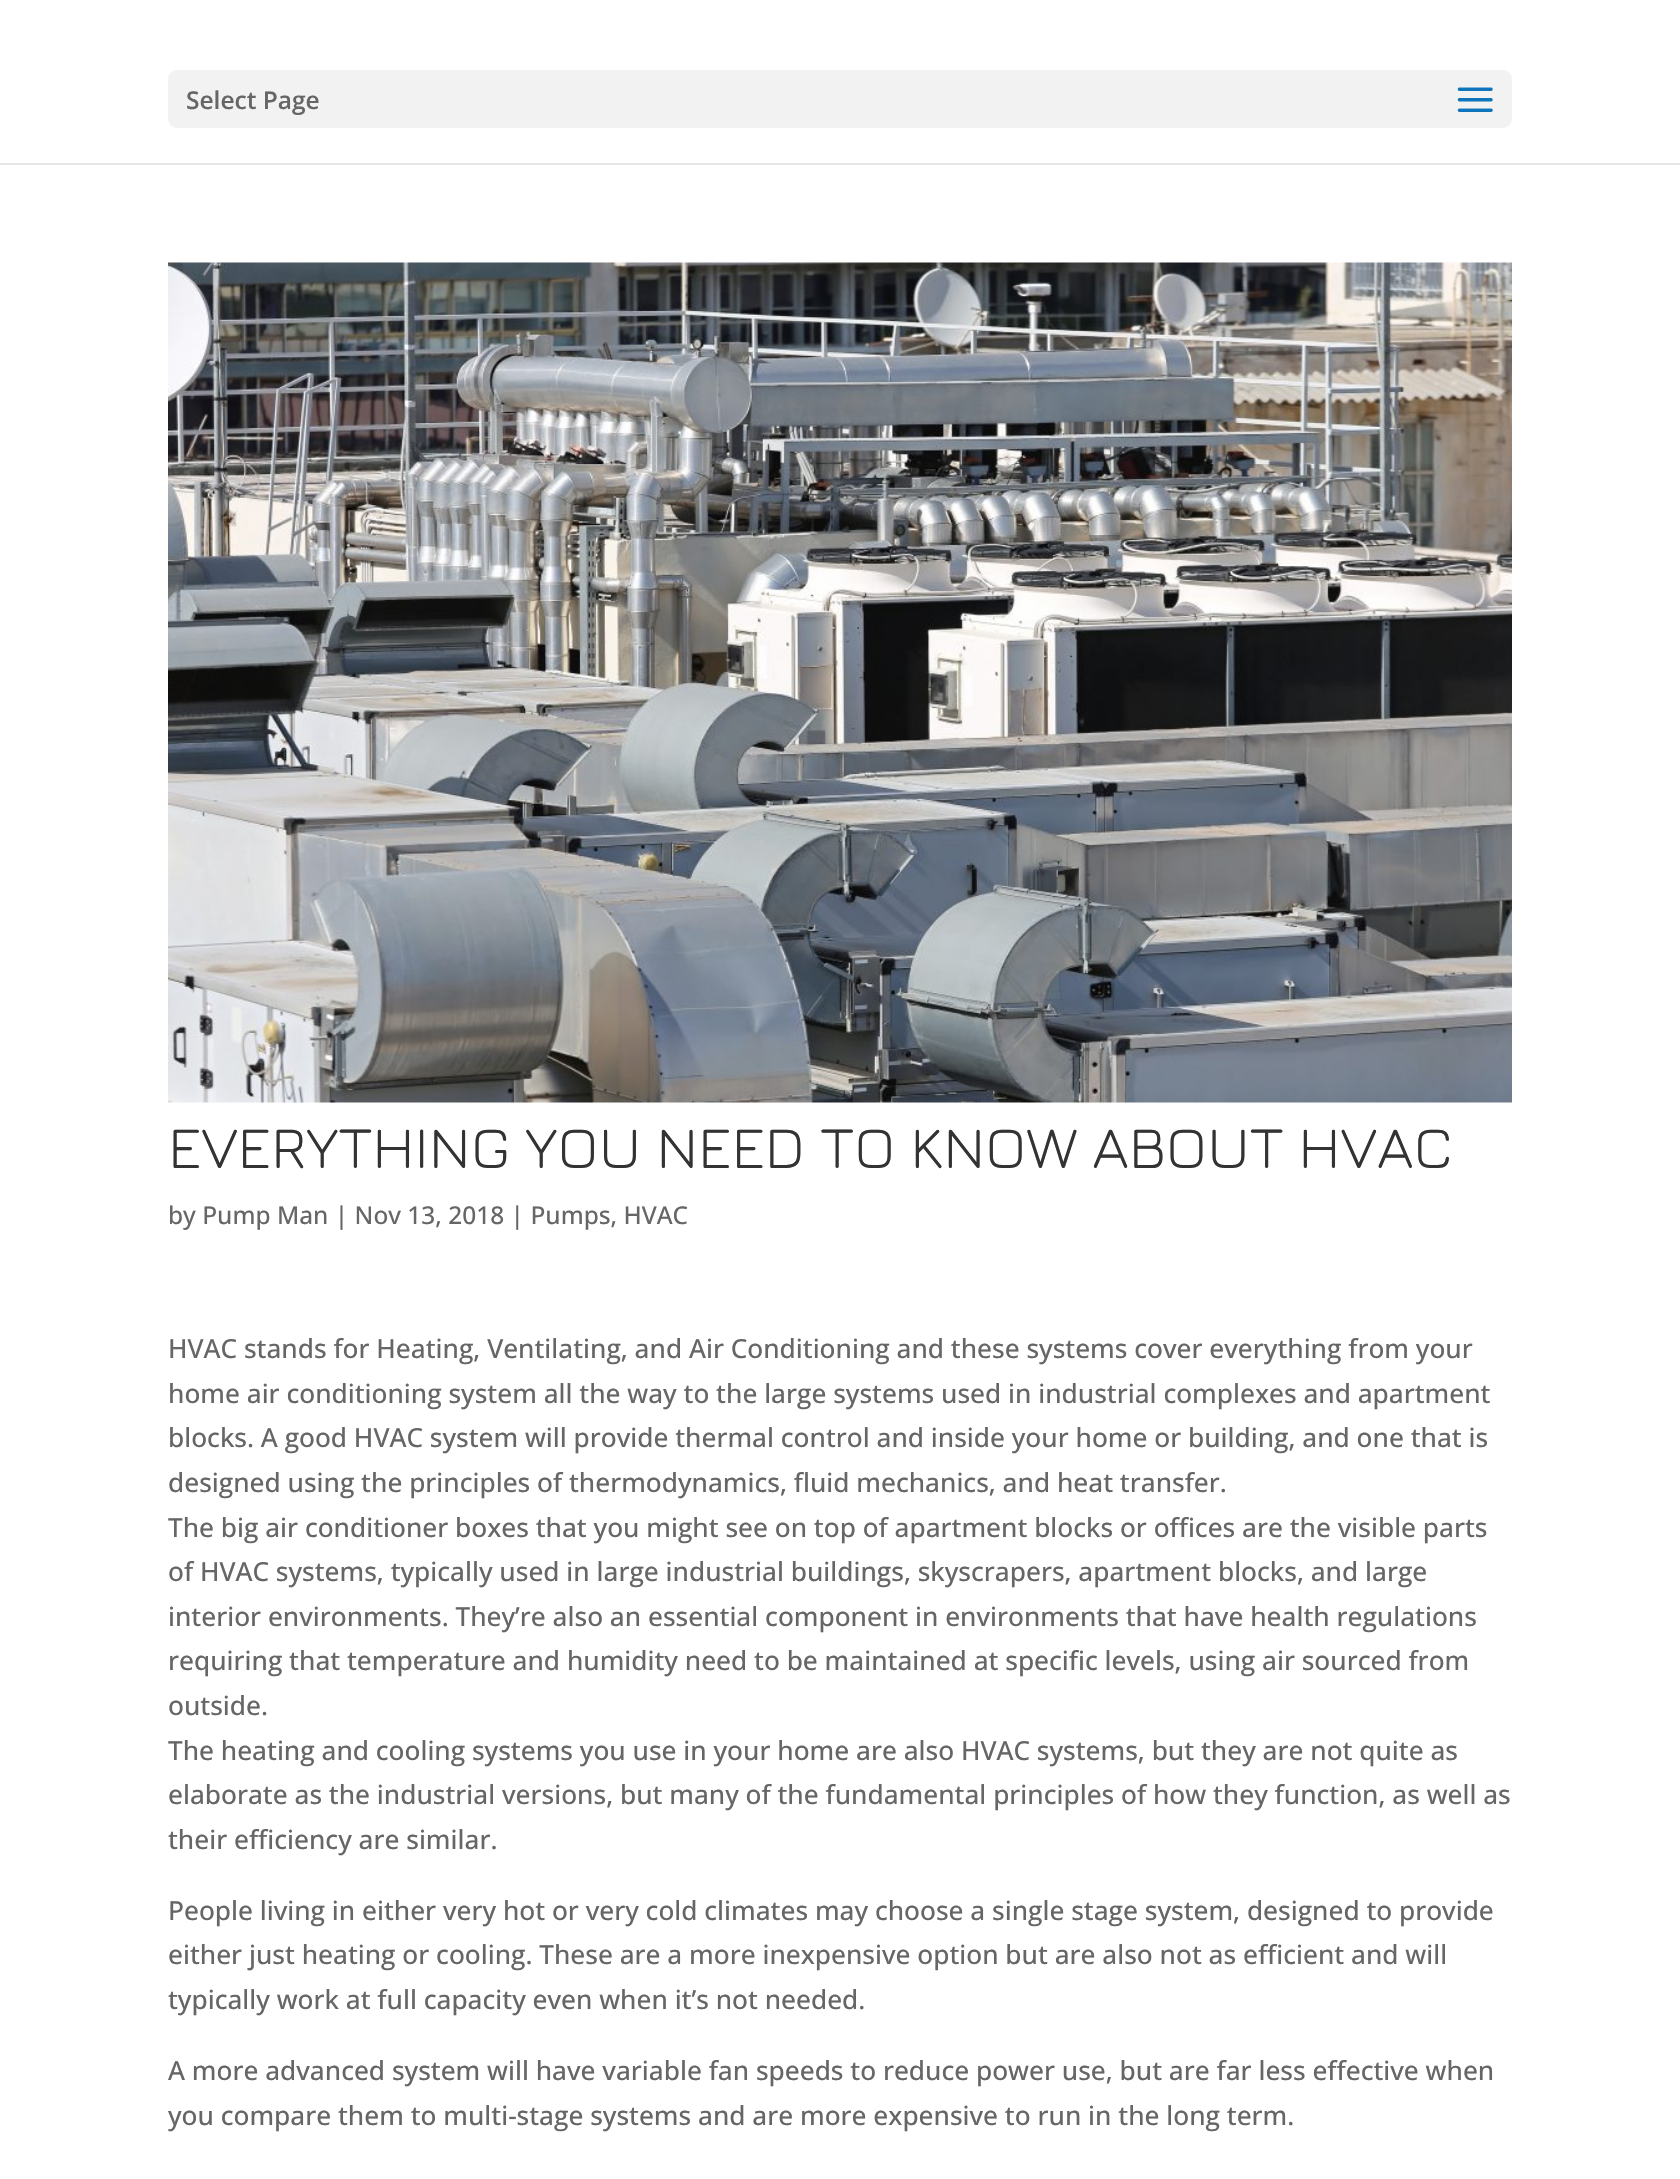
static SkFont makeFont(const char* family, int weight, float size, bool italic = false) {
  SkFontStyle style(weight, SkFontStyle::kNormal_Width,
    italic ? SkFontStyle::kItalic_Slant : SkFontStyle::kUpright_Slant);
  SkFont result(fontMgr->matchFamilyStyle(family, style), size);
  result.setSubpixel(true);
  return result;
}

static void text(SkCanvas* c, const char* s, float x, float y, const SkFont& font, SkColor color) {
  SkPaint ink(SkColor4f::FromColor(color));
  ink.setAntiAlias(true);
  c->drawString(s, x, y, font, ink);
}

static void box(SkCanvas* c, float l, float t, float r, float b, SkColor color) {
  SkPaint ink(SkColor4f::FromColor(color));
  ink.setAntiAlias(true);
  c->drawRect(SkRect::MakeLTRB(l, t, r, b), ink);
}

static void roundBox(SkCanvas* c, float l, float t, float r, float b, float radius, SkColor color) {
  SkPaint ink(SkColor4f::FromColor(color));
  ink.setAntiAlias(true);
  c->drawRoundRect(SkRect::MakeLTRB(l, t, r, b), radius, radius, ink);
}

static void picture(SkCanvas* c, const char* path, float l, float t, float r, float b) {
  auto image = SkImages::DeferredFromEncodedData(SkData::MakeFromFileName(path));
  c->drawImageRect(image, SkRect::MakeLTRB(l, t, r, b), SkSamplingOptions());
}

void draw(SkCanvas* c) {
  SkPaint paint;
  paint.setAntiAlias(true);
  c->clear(0xffffffff);
  box(c, 0, 163, 1680, 165, 0xffe6e6e6);
  roundBox(c, 168, 70, 1512, 128, 9, 0xfff2f2f2);
  SkFont face1 = makeFont("Open Sans", 600, 24.5f);
  text(c, "Select Page", 186, 109, face1, 0xff666666);
  picture(c, "img_01.png", 1457, 87, 1493, 112);
  picture(c, "img_02.png", 168, 262, 1512, 1103);
  SkFont face2 = makeFont("Jura", 300, 59.5f);
  text(c, "EVERYTHING YOU NEED TO KNOW ABOUT HVAC", 168, 1168, face2, 0xff333333);
  SkFont face3 = makeFont("Open Sans", 500, 24.5f);
  text(c, "by Pump Man | Nov 13, 2018 | Pumps, HVAC", 168, 1224, face3, 0xff666666);
  SkFont face4 = makeFont("Open Sans", 500, 26.25f);
  text(c, "HVAC stands for Heating, Ventilating, and Air Conditioning and these systems cover everything from your", 168, 1358, face4, 0xff666666);
  text(c, "home air conditioning system all the way to the large systems used in industrial complexes and apartment", 168, 1403, face4, 0xff666666);
  text(c, "blocks. A good HVAC system will provide thermal control and inside your home or building, and one that is", 168, 1447, face4, 0xff666666);
  text(c, "designed using the principles of thermodynamics, fluid mechanics, and heat transfer.", 168, 1492, face4, 0xff666666);
  text(c, "The big air conditioner boxes that you might see on top of apartment blocks or offices are the visible parts", 168, 1537, face4, 0xff666666);
  text(c, "of HVAC systems, typically used in large industrial buildings, skyscrapers, apartment blocks, and large", 168, 1581, face4, 0xff666666);
  text(c, "interior environments. They’re also an essential component in environments that have health regulations", 168, 1626, face4, 0xff666666);
  text(c, "requiring that temperature and humidity need to be maintained at specific levels, using air sourced from", 168, 1670, face4, 0xff666666);
  text(c, "outside.", 168, 1715, face4, 0xff666666);
  text(c, "The heating and cooling systems you use in your home are also HVAC systems, but they are not quite as", 168, 1760, face4, 0xff666666);
  text(c, "elaborate as the industrial versions, but many of the fundamental principles of how they function, as well as", 168, 1804, face4, 0xff666666);
  text(c, "their efficiency are similar.", 168, 1849, face4, 0xff666666);
  text(c, "People living in either very hot or very cold climates may choose a single stage system, designed to provide", 168, 1920, face4, 0xff666666);
  text(c, "either just heating or cooling. These are a more inexpensive option but are also not as efficient and will", 168, 1964, face4, 0xff666666);
  text(c, "typically work at full capacity even when it’s not needed.", 168, 2009, face4, 0xff666666);
  text(c, "A more advanced system will have variable fan speeds to reduce power use, but are far less effective when", 168, 2080, face4, 0xff666666);
  text(c, "you compare them to multi-stage systems and are more expensive to run in the long term.", 168, 2125, face4, 0xff666666);
}
